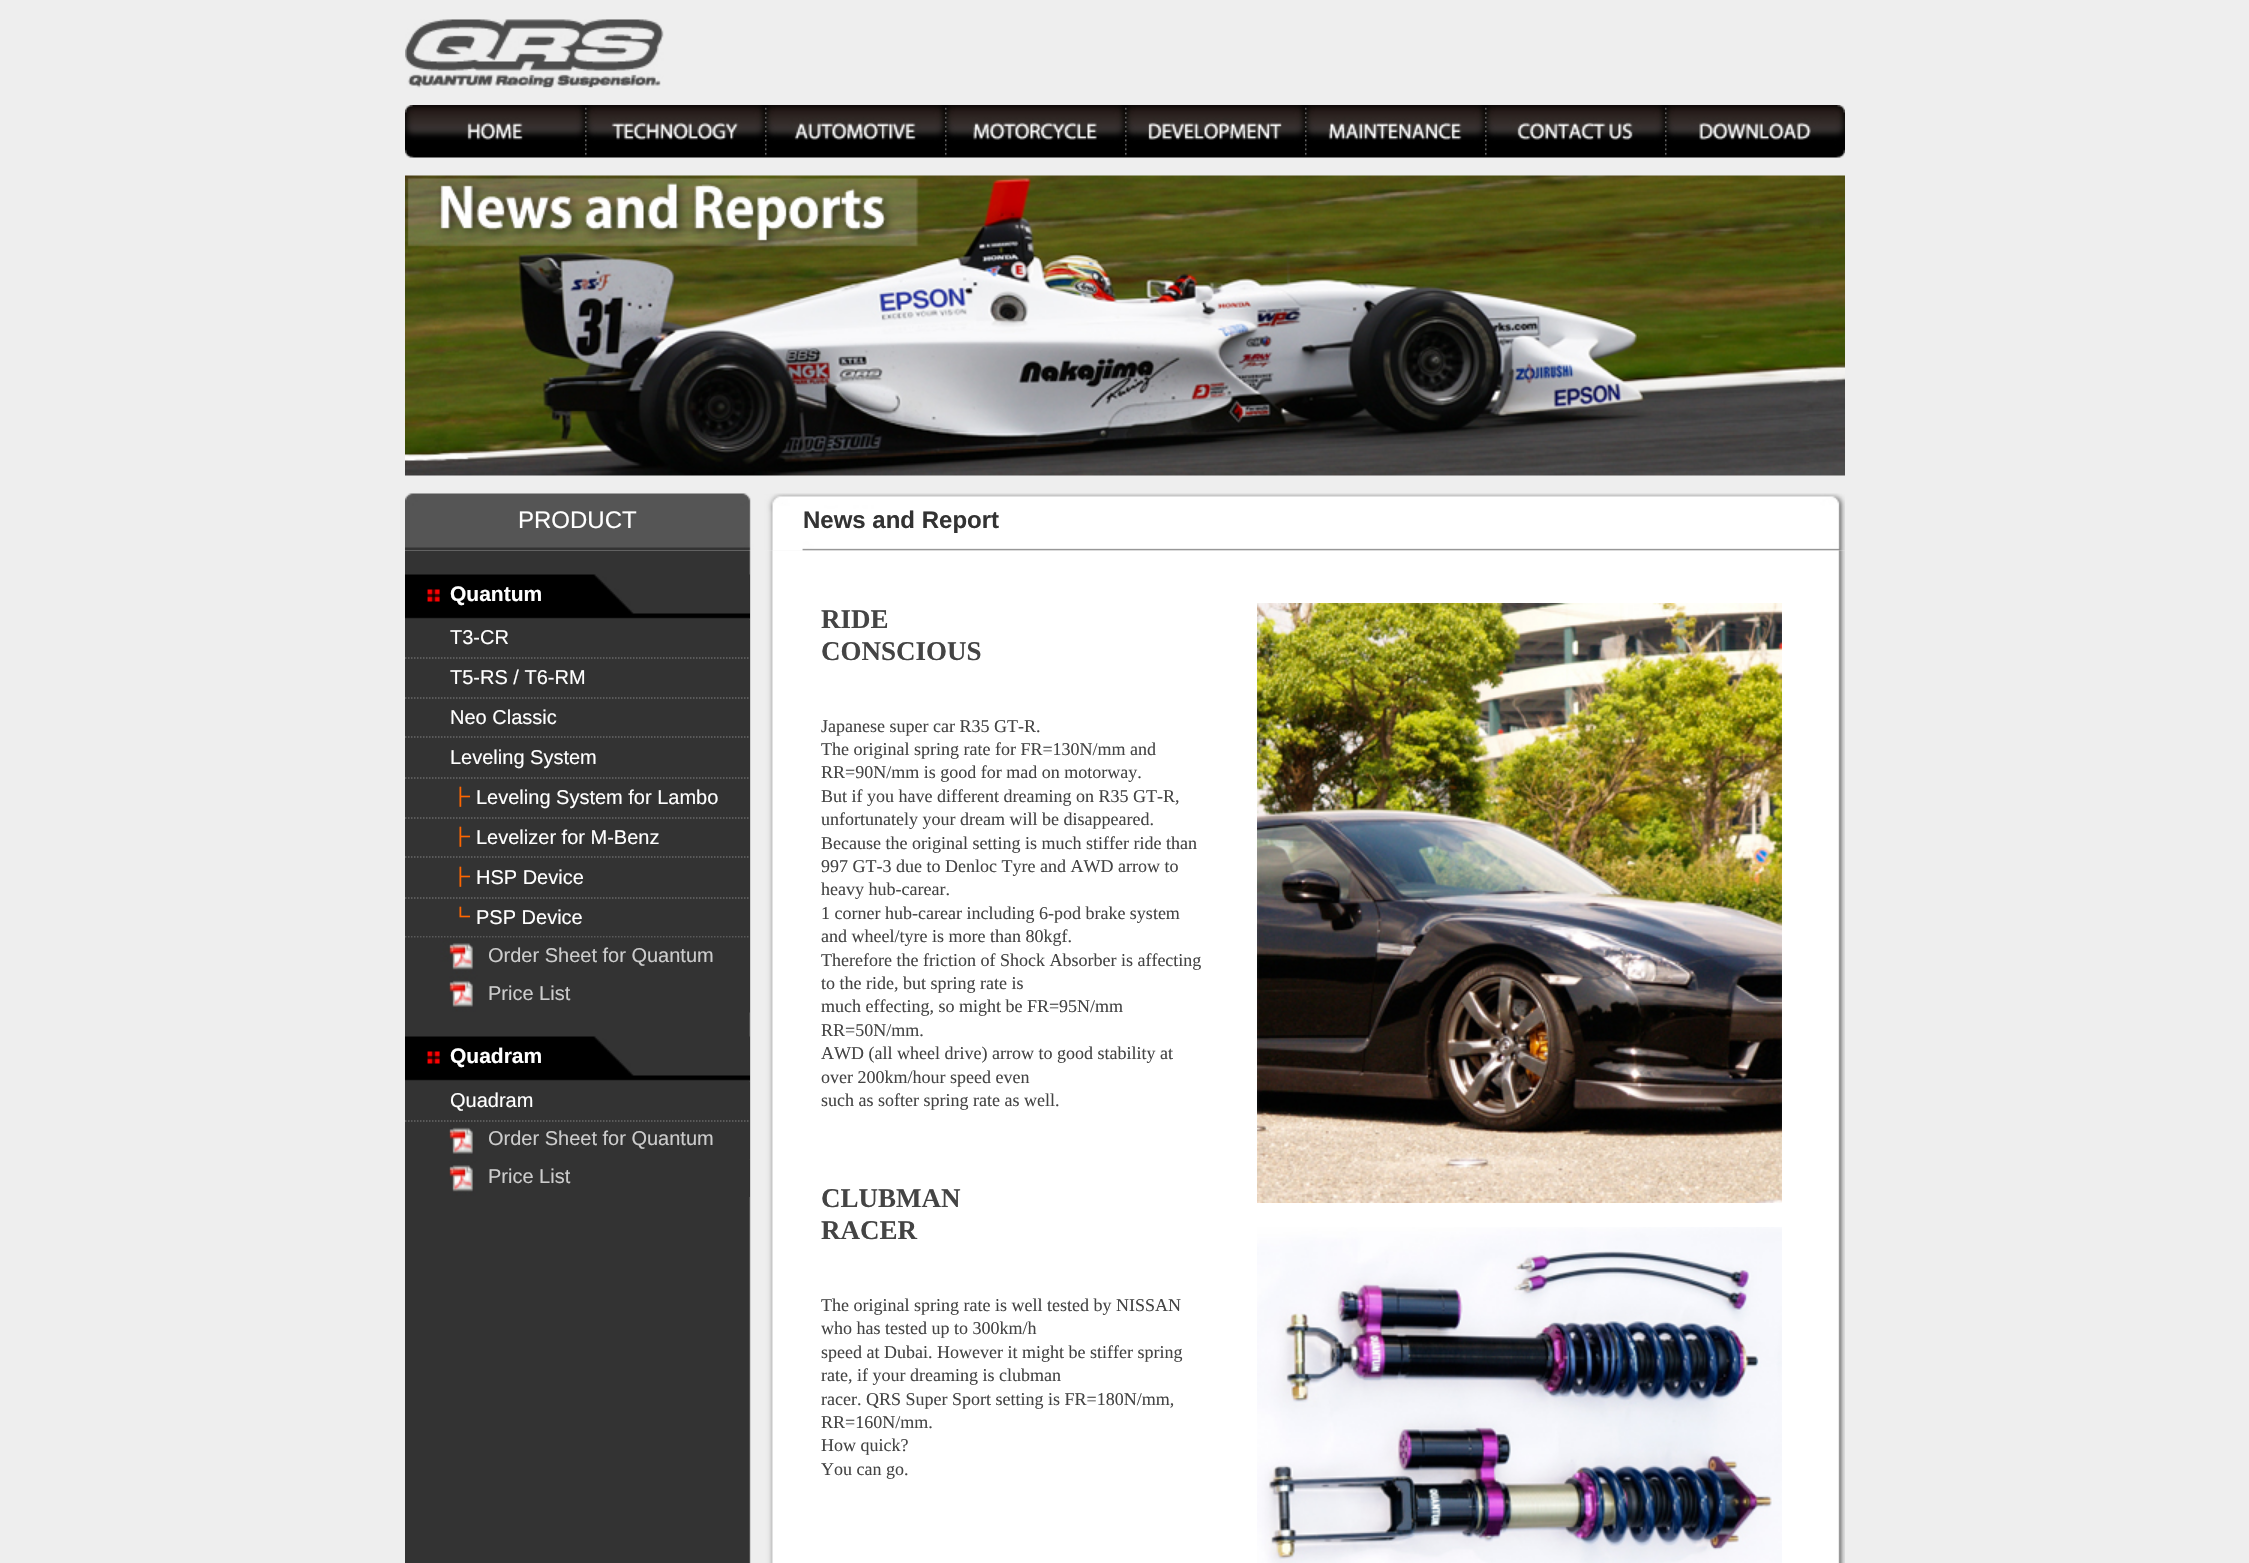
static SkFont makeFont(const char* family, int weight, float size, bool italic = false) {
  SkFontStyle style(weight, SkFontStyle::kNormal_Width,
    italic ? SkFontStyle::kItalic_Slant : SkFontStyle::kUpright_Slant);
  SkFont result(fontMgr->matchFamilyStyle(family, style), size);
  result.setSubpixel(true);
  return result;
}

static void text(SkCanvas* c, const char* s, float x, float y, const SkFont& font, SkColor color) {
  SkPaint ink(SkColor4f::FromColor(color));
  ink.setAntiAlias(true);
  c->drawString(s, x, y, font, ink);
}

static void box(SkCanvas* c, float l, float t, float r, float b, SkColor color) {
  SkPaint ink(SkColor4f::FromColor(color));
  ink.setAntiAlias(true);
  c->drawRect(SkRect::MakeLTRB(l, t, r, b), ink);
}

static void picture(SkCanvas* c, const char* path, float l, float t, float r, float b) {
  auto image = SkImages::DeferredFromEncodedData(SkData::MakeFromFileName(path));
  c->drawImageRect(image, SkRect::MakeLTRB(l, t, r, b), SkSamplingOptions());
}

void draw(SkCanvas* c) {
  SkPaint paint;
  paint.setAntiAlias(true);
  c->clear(0xffeeeeee);
  picture(c, "img_01.png", 405, 19, 664, 88);
  picture(c, "img_02.png", 405, 105, 585, 158);
  picture(c, "img_03.png", 585, 105, 765, 158);
  picture(c, "img_04.png", 765, 105, 945, 158);
  picture(c, "img_05.png", 945, 105, 1125, 158);
  picture(c, "img_06.png", 1125, 105, 1305, 158);
  picture(c, "img_07.png", 1305, 105, 1485, 158);
  picture(c, "img_08.png", 1485, 105, 1665, 158);
  picture(c, "img_09.png", 1665, 105, 1845, 158);
  picture(c, "img_10.png", 405, 175, 1845, 476);
  picture(c, "img_11.png", 405, 493, 1845, 551);
  SkFont face1 = makeFont("Liberation Sans", 400, 24);
  text(c, "PRODUCT", 518, 528, face1, 0xffffffff);
  SkFont face2 = makeFont("Liberation Sans", 700, 24);
  text(c, "News and Report", 803, 528, face2, 0xff333333);
  picture(c, "img_12.png", 405, 550, 1845, 1563);
  picture(c, "img_13.png", 405, 574, 750, 620);
  SkFont face3 = makeFont("Liberation Sans", 700, 21);
  text(c, "Quantum", 450, 601, face3, 0xffffffff);
  box(c, 749, 620, 750, 938, 0xff333333);
  paint.setStyle(SkPaint::kStroke_Style);
  paint.setStrokeWidth(1.5f);
  paint.setColor(0xff666666);
  paint.setPathEffect(SkDashPathEffect::Make({{1.5f, 1.5f}}, 0));
  c->drawPath(SkPathBuilder().moveTo(405, 658).lineTo(750, 658).detach(), paint);
  paint.setPathEffect(nullptr);
  SkFont face4 = makeFont("Liberation Sans", 400, 20);
  text(c, "T3-CR", 450, 644, face4, 0xffffffff);
  paint.setPathEffect(SkDashPathEffect::Make({{1.5f, 1.5f}}, 0));
  c->drawPath(SkPathBuilder().moveTo(405, 698).lineTo(750, 698).detach(), paint);
  paint.setPathEffect(nullptr);
  text(c, "T5-RS / T6-RM", 450, 684, face4, 0xffffffff);
  paint.setPathEffect(SkDashPathEffect::Make({{1.5f, 1.5f}}, 0));
  c->drawPath(SkPathBuilder().moveTo(405, 737).lineTo(750, 737).detach(), paint);
  paint.setPathEffect(nullptr);
  text(c, "Neo Classic", 450, 724, face4, 0xffffffff);
  paint.setPathEffect(SkDashPathEffect::Make({{1.5f, 1.5f}}, 0));
  c->drawPath(SkPathBuilder().moveTo(405, 778).lineTo(750, 778).detach(), paint);
  paint.setPathEffect(nullptr);
  text(c, "Leveling System", 450, 764, face4, 0xffffffff);
  paint.setPathEffect(SkDashPathEffect::Make({{1.5f, 1.5f}}, 0));
  c->drawPath(SkPathBuilder().moveTo(405, 818).lineTo(750, 818).detach(), paint);
  paint.setPathEffect(nullptr);
  SkFont face5 = makeFont("WenQuanYi Zen Hei", 500, 20);
  text(c, "┣", 450, 804, face5, 0xffff6600);
  text(c, "Leveling System for Lambo", 476, 804, face4, 0xffffffff);
  paint.setPathEffect(SkDashPathEffect::Make({{1.5f, 1.5f}}, 0));
  c->drawPath(SkPathBuilder().moveTo(405, 857).lineTo(750, 857).detach(), paint);
  paint.setPathEffect(nullptr);
  text(c, "┣", 450, 844, face5, 0xffff6600);
  text(c, "Levelizer for M-Benz", 476, 844, face4, 0xffffffff);
  paint.setPathEffect(SkDashPathEffect::Make({{1.5f, 1.5f}}, 0));
  c->drawPath(SkPathBuilder().moveTo(405, 898).lineTo(750, 898).detach(), paint);
  paint.setPathEffect(nullptr);
  text(c, "┣", 450, 884, face5, 0xffff6600);
  text(c, "HSP Device", 476, 884, face4, 0xffffffff);
  paint.setPathEffect(SkDashPathEffect::Make({{1.5f, 1.5f}}, 0));
  c->drawPath(SkPathBuilder().moveTo(405, 937).lineTo(750, 937).detach(), paint);
  paint.setPathEffect(nullptr);
  text(c, "┗", 450, 924, face5, 0xffff6600);
  text(c, "PSP Device", 476, 924, face4, 0xffffffff);
  picture(c, "img_14.png", 405, 937, 750, 975);
  text(c, "Order Sheet for Quantum", 488, 962, face4, 0xffcccccc);
  picture(c, "img_15.png", 449, 975, 750, 1013);
  text(c, "Price List", 488, 1000, face4, 0xffcccccc);
  picture(c, "img_13.png", 405, 1036, 750, 1082);
  text(c, "Quadram", 450, 1063, face3, 0xffffffff);
  box(c, 749, 1082, 750, 1122, 0xff333333);
  paint.setPathEffect(SkDashPathEffect::Make({{1.5f, 1.5f}}, 0));
  c->drawPath(SkPathBuilder().moveTo(405, 1121).lineTo(750, 1121).detach(), paint);
  paint.setPathEffect(nullptr);
  text(c, "Quadram", 450, 1107, face4, 0xffffffff);
  picture(c, "img_15.png", 449, 1122, 750, 1160);
  text(c, "Order Sheet for Quantum", 488, 1145, face4, 0xffcccccc);
  picture(c, "img_16.png", 449, 1159, 750, 1197);
  text(c, "Price List", 488, 1183, face4, 0xffcccccc);
  SkFont face6 = makeFont("Liberation Serif", 700, 27);
  text(c, "RIDE", 821, 628, face6, 0xff444444);
  text(c, "CONSCIOUS", 821, 660, face6, 0xff444444);
  SkFont face7 = makeFont("Liberation Serif", 400, 18);
  text(c, "Japanese super car R35 GT-R.", 821, 732, face7, 0xff444444);
  text(c, "The original spring rate for FR=130N/mm and", 821, 755, face7, 0xff444444);
  text(c, "RR=90N/mm is good for mad on motorway.", 821, 778, face7, 0xff444444);
  text(c, "But if you have different dreaming on R35 GT-R,", 821, 802, face7, 0xff444444);
  text(c, "unfortunately your dream will be disappeared.", 821, 825, face7, 0xff444444);
  text(c, "Because the original setting is much stiffer ride than", 821, 849, face7, 0xff444444);
  text(c, "997 GT-3 due to Denloc Tyre and AWD arrow to", 821, 872, face7, 0xff444444);
  text(c, "heavy hub-carear.", 821, 895, face7, 0xff444444);
  text(c, "1 corner hub-carear including 6-pod brake system", 821, 919, face7, 0xff444444);
  text(c, "and wheel/tyre is more than 80kgf.", 821, 942, face7, 0xff444444);
  text(c, "Therefore the friction of Shock Absorber is affecting", 821, 966, face7, 0xff444444);
  text(c, "to the ride, but spring rate is", 821, 989, face7, 0xff444444);
  text(c, "much effecting, so might be FR=95N/mm", 821, 1012, face7, 0xff444444);
  text(c, "RR=50N/mm.", 821, 1036, face7, 0xff444444);
  text(c, "AWD (all wheel drive) arrow to good stability at", 821, 1059, face7, 0xff444444);
  text(c, "over 200km/hour speed even", 821, 1083, face7, 0xff444444);
  text(c, "such as softer spring rate as well.", 821, 1106, face7, 0xff444444);
  text(c, "CLUBMAN", 821, 1207, face6, 0xff444444);
  text(c, "RACER", 821, 1239, face6, 0xff444444);
  text(c, "The original spring rate is well tested by NISSAN", 821, 1311, face7, 0xff444444);
  text(c, "who has tested up to 300km/h", 821, 1334, face7, 0xff444444);
  text(c, "speed at Dubai. However it might be stiffer spring", 821, 1358, face7, 0xff444444);
  text(c, "rate, if your dreaming is clubman", 821, 1381, face7, 0xff444444);
  text(c, "racer. QRS Super Sport setting is FR=180N/mm,", 821, 1405, face7, 0xff444444);
  text(c, "RR=160N/mm.", 821, 1428, face7, 0xff444444);
  text(c, "How quick?", 821, 1451, face7, 0xff444444);
  text(c, "You can go.", 821, 1475, face7, 0xff444444);
  picture(c, "img_17.png", 1257, 603, 1782, 1203);
  picture(c, "img_18.png", 1257, 1227, 1782, 1563);
}
